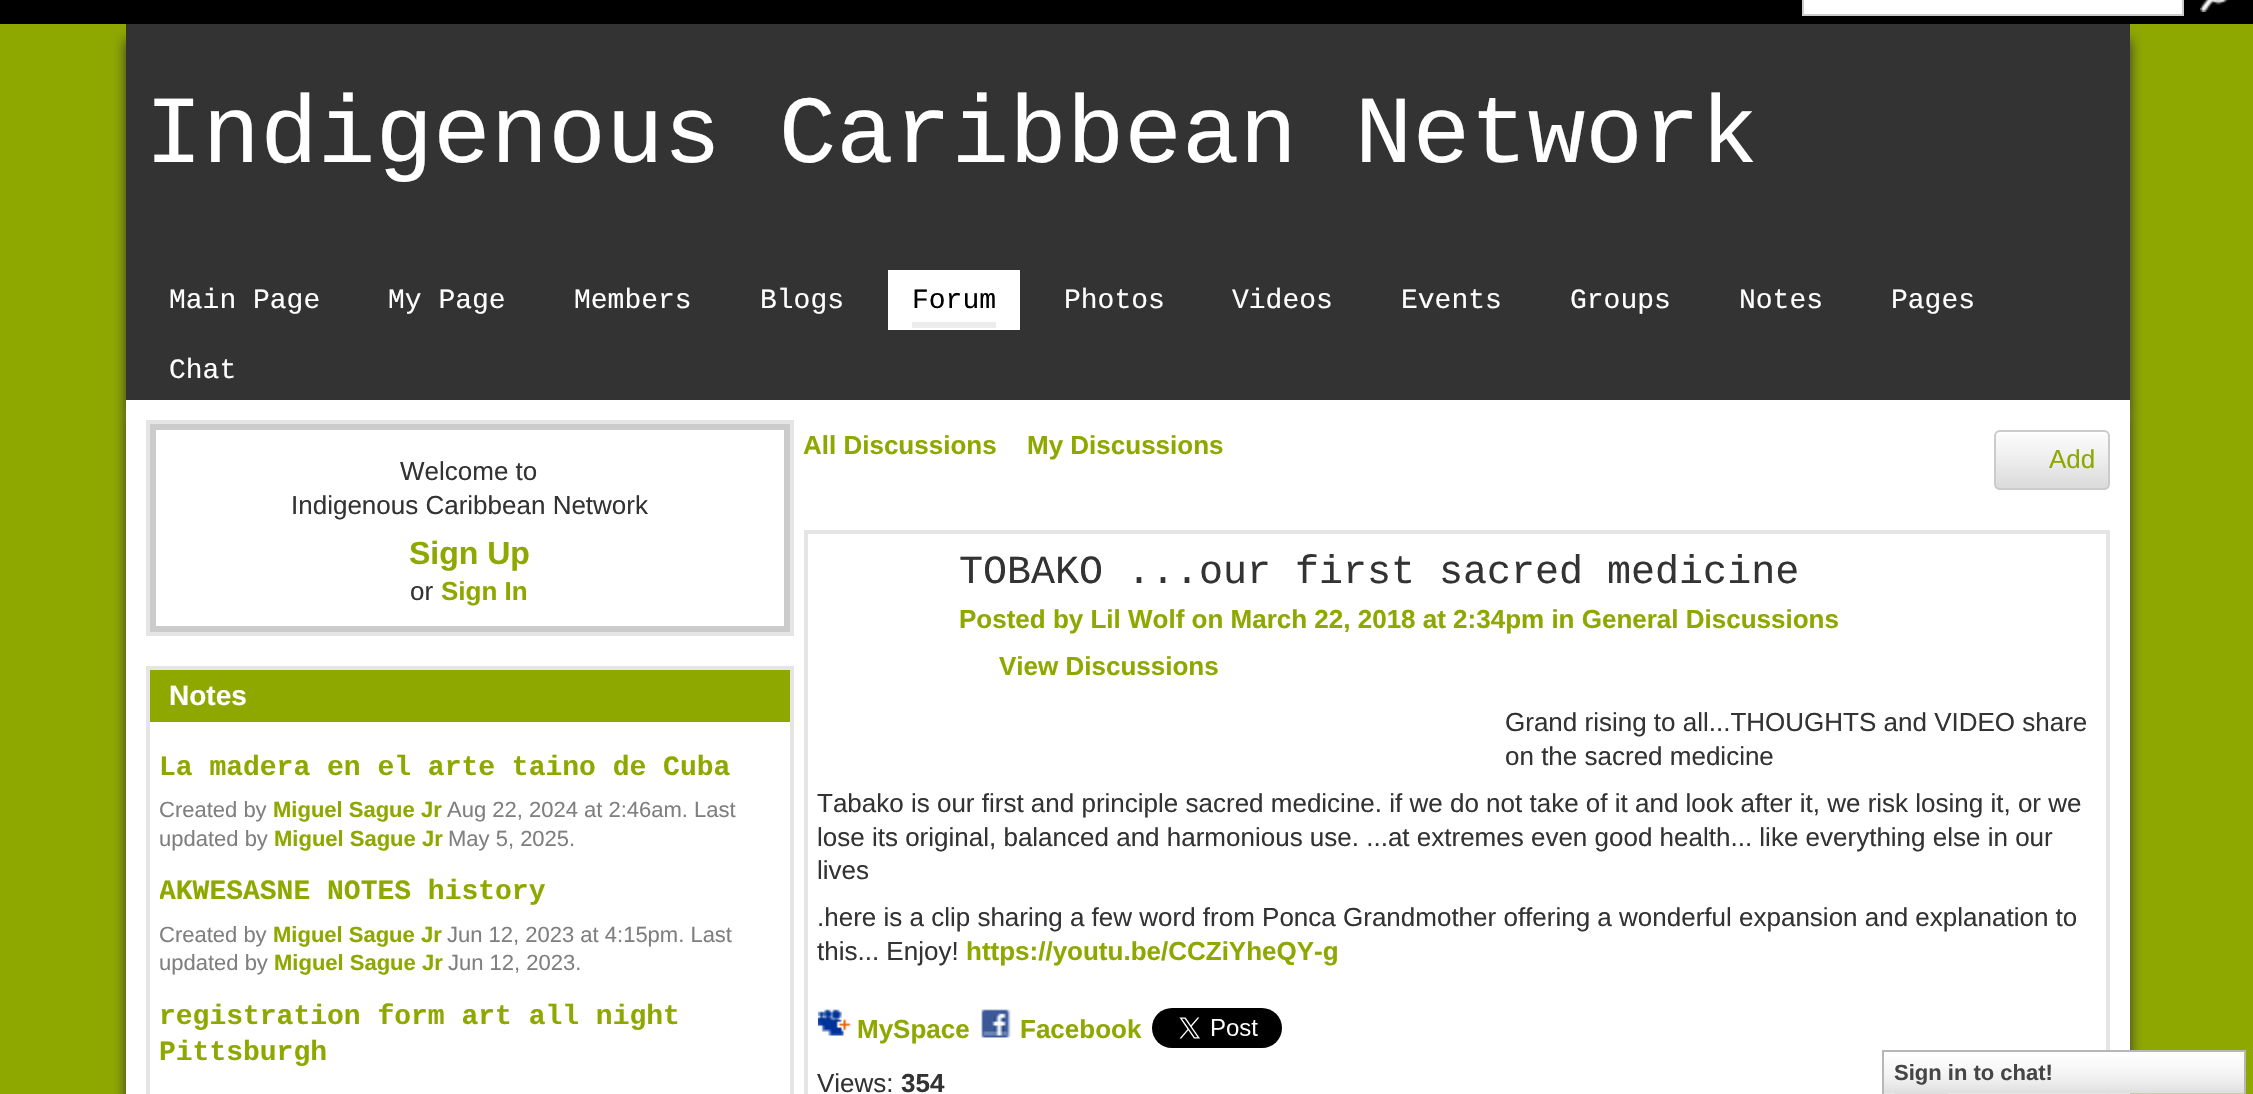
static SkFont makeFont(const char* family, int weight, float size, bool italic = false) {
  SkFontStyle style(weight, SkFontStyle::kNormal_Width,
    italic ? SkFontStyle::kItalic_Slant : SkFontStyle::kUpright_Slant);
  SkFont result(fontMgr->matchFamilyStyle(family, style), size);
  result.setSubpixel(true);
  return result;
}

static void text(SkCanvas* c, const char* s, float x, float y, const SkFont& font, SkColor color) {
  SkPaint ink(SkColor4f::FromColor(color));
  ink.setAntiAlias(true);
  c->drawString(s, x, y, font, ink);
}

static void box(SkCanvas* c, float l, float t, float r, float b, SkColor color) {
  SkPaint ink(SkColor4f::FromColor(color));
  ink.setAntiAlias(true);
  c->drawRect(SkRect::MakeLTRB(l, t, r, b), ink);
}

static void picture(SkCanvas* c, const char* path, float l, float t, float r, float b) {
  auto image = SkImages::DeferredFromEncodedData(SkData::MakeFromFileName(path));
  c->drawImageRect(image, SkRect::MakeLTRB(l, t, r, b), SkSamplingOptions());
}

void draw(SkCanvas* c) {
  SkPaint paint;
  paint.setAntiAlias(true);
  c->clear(0xff8ea800);
  box(c, 0, 0, 2253, 24, 0xff000000);
  box(c, 1804, 0, 2182, 14, 0xffffffff);
  box(c, 2182, 0, 2184, 16, 0xffcccccc);
  box(c, 1802, 14, 2184, 16, 0xffcccccc);
  box(c, 1802, 0, 1804, 16, 0xffcccccc);
  picture(c, "img_01.png", 2200, 0, 2229, 12);
  paint.setColor(0xff333333);
  paint.setMaskFilter(SkMaskFilter::MakeBlur(kNormal_SkBlurStyle, 6));
  c->drawRect(SkRect::MakeLTRB(126, 40, 2130, 416), paint);
  paint.setMaskFilter(nullptr);
  box(c, 126, 24, 2130, 400, 0xff333333);
  SkFont face1 = makeFont("Liberation Mono", 400, 96);
  text(c, "Indigenous Caribbean Network", 145, 162, face1, 0xffffffff);
  SkFont face2 = makeFont("Liberation Mono", 400, 28);
  text(c, "Main Page", 169, 308, face2, 0xffffffff);
  text(c, "My Page", 388, 308, face2, 0xffffffff);
  text(c, "Members", 574, 308, face2, 0xffffffff);
  text(c, "Blogs", 760, 308, face2, 0xffffffff);
  box(c, 888, 270, 1020, 330, 0xffffffff);
  text(c, "Forum", 912, 308, face2, 0xff000000);
  box(c, 912, 322, 996, 328, 0xffededed);
  text(c, "Photos", 1064, 308, face2, 0xffffffff);
  text(c, "Videos", 1232, 308, face2, 0xffffffff);
  text(c, "Events", 1401, 308, face2, 0xffffffff);
  text(c, "Groups", 1570, 308, face2, 0xffffffff);
  text(c, "Notes", 1739, 308, face2, 0xffffffff);
  text(c, "Pages", 1891, 308, face2, 0xffffffff);
  text(c, "Chat", 169, 378, face2, 0xffffffff);
  paint.setMaskFilter(SkMaskFilter::MakeBlur(kNormal_SkBlurStyle, 6));
  c->drawRect(SkRect::MakeLTRB(126, 416, 2130, 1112), paint);
  paint.setMaskFilter(nullptr);
  box(c, 126, 400, 2130, 1094, 0xffffffff);
  paint.setStyle(SkPaint::kStroke_Style);
  paint.setStrokeWidth(4);
  paint.setColor(0xffe5e5e5);
  c->drawRect(SkRect::MakeLTRB(148, 422, 792, 634), paint);
  paint.setStrokeWidth(6);
  paint.setColor(0xffcbcbcb);
  c->drawRect(SkRect::MakeLTRB(153, 427, 787, 629), paint);
  SkFont face3 = makeFont("Liberation Sans", 400, 26);
  text(c, "Welcome to", 400, 480, face3, 0xff333333);
  text(c, "Indigenous Caribbean Network", 291, 514, face3, 0xff333333);
  SkFont face4 = makeFont("Liberation Sans", 700, 32);
  text(c, "Sign Up", 409, 564, face4, 0xff8ea800);
  text(c, "or", 410, 600, face3, 0xff333333);
  SkFont face5 = makeFont("Liberation Sans", 700, 26);
  text(c, "Sign In", 441, 600, face5, 0xff8ea800);
  paint.setStrokeWidth(4);
  paint.setColor(0xffe5e5e5);
  c->drawRect(SkRect::MakeLTRB(148, 668, 792, 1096), paint);
  box(c, 150, 670, 790, 722, 0xff8ea800);
  SkFont face6 = makeFont("Liberation Sans", 700, 28);
  text(c, "Notes", 169, 705, face6, 0xffffffff);
  SkFont face7 = makeFont("Liberation Mono", 700, 28);
  text(c, "La madera en el arte taino de Cuba", 159, 775, face7, 0xff8ea800);
  SkFont face8 = makeFont("Liberation Sans", 400, 22);
  text(c, "Created by", 159, 817, face8, 0xff7f7f7f);
  SkFont face9 = makeFont("Liberation Sans", 700, 22);
  text(c, "Miguel Sague Jr", 273, 817, face9, 0xff8ea800);
  text(c, "Aug 22, 2024 at 2:46am. Last", 447, 817, face8, 0xff7f7f7f);
  text(c, "updated by", 159, 846, face8, 0xff7f7f7f);
  text(c, "Miguel Sague Jr", 274, 846, face9, 0xff8ea800);
  text(c, "May 5, 2025.", 448, 846, face8, 0xff7f7f7f);
  c->save();
  c->clipRect(SkRect::MakeLTRB(160, 874, 780, 910));
  text(c, "AKWESASNE NOTES history", 159, 899, face7, 0xff8ea800);
  c->restore();
  text(c, "Created by", 159, 942, face8, 0xff7f7f7f);
  text(c, "Miguel Sague Jr", 273, 942, face9, 0xff8ea800);
  text(c, "Jun 12, 2023 at 4:15pm. Last", 447, 942, face8, 0xff7f7f7f);
  text(c, "updated by", 159, 970, face8, 0xff7f7f7f);
  text(c, "Miguel Sague Jr", 274, 970, face9, 0xff8ea800);
  text(c, "Jun 12, 2023.", 448, 970, face8, 0xff7f7f7f);
  text(c, "registration form art all night", 159, 1024, face7, 0xff8ea800);
  text(c, "Pittsburgh", 159, 1060, face7, 0xff8ea800);
  text(c, "All Discussions", 803, 454, face5, 0xff8ea800);
  text(c, "My Discussions", 1027, 454, face5, 0xff8ea800);
  picture(c, "img_02.png", 1994, 434, 2110, 490);
  paint.setStrokeWidth(2);
  paint.setColor(0xffcbcbcb);
  c->drawRoundRect(SkRect::MakeLTRB(1995, 431, 2109, 489), 5, 5, paint);
  text(c, "Add", 2049, 468, face3, 0xff8ea800);
  paint.setStrokeWidth(4);
  paint.setColor(0xffe5e5e5);
  c->drawRect(SkRect::MakeLTRB(806, 532, 2108, 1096), paint);
  SkFont face10 = makeFont("Liberation Mono", 400, 40);
  text(c, "TOBAKO ...our first sacred medicine", 959, 583, face10, 0xff333333);
  text(c, "Posted by Lil Wolf on March 22, 2018 at 2:34pm in General Discussions", 959, 628, face5, 0xff8ea800);
  text(c, "View Discussions", 999, 675, face5, 0xff8ea800);
  text(c, "Grand rising to all...THOUGHTS and VIDEO share", 1505, 731, face3, 0xff333333);
  text(c, "on the sacred medicine", 1505, 765, face3, 0xff333333);
  text(c, "Tabako is our first and principle sacred medicine. if we do not take of it and look after it, we risk losing it, or we", 817, 812, face3, 0xff333333);
  text(c, "lose its original, balanced and harmonious use. ...at extremes even good health... like everything else in our", 817, 846, face3, 0xff333333);
  text(c, "lives", 817, 879, face3, 0xff333333);
  text(c, ".here is a clip sharing a few word from Ponca Grandmother offering a wonderful expansion and explanation to", 817, 926, face3, 0xff333333);
  text(c, "this... Enjoy!", 817, 960, face3, 0xff333333);
  text(c, "https://youtu.be/CCZiYheQY-g", 966, 960, face5, 0xff8ea800);
  picture(c, "img_03.png", 818, 1009, 851, 1036);
  text(c, "MySpace", 857, 1038, face5, 0xff8ea800);
  picture(c, "img_04.png", 981, 1009, 1011, 1038);
  text(c, "Facebook", 1020, 1038, face5, 0xff8ea800);
  picture(c, "img_05.png", 1152, 1008, 1282, 1048);
  text(c, "Views:", 817, 1092, face3, 0xff333333);
  text(c, "354", 901, 1092, face5, 0xff333333);
  picture(c, "img_06.png", 1884, 1052, 2244, 1094);
  paint.setStrokeWidth(2);
  paint.setColor(0xffb7b7b7);
  c->drawRect(SkRect::MakeLTRB(1883, 1051, 2245, 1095), paint);
  box(c, 1894, 1093, 1948, 1094, 0xffdedede);
  text(c, "Sign in to chat!", 1894, 1080, face9, 0xff454545);
}
